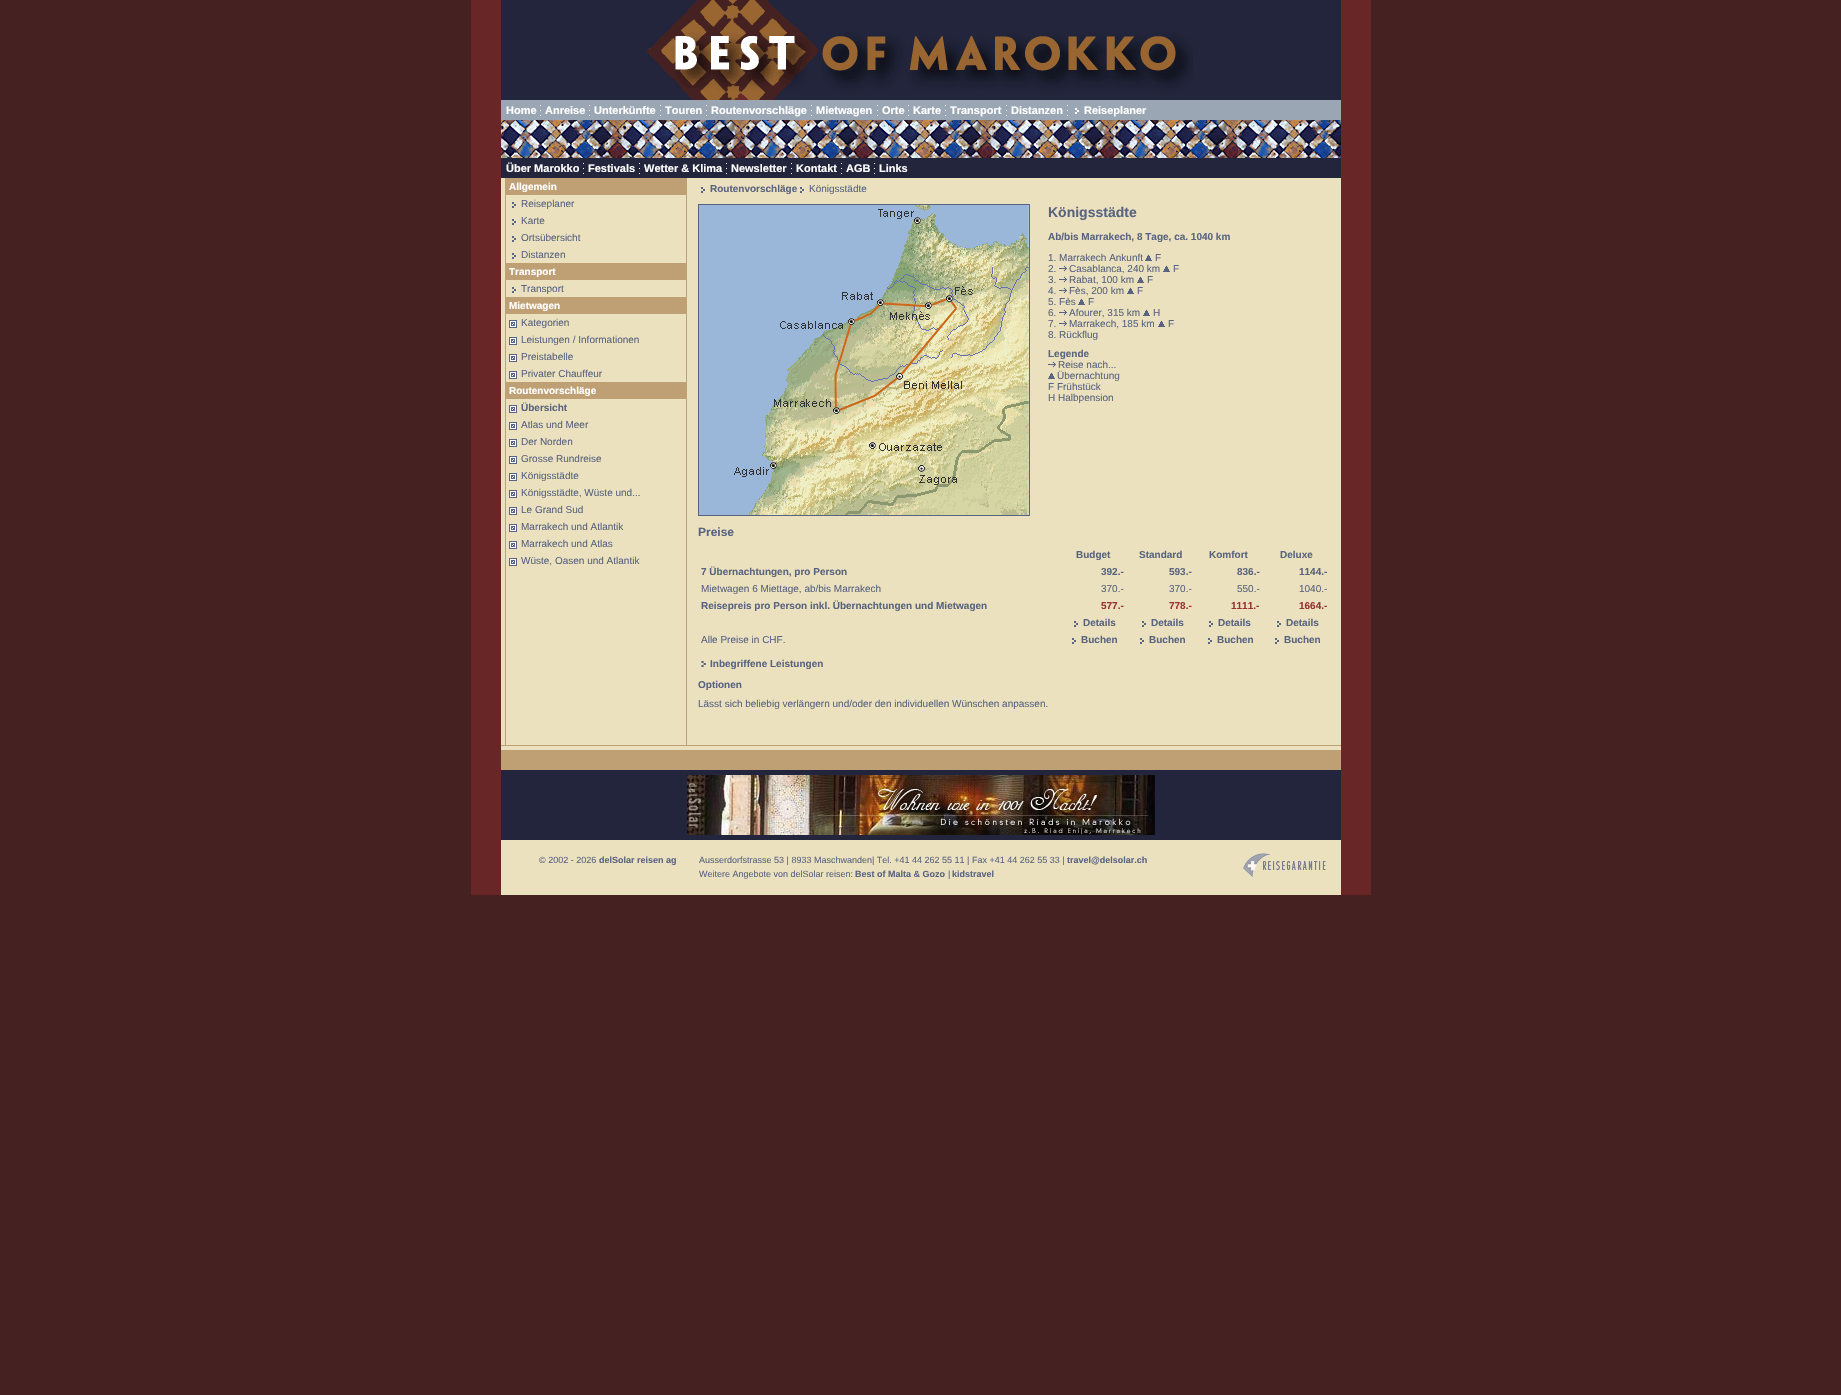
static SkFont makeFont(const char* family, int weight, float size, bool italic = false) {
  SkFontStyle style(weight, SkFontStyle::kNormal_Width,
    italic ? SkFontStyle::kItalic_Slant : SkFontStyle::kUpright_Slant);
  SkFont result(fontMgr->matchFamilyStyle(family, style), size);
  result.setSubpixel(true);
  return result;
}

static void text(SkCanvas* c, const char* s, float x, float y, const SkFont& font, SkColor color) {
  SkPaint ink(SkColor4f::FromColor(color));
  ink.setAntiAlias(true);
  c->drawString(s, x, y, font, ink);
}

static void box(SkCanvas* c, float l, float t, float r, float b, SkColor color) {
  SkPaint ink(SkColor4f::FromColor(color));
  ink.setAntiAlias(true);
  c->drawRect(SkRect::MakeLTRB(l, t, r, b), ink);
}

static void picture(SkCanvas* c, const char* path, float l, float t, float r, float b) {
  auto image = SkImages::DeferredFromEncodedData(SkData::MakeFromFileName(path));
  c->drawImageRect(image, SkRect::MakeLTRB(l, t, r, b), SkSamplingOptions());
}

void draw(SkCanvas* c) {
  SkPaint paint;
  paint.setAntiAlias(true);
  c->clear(0xff462121);
  box(c, 471, 0, 501, 895, 0xff682626);
  box(c, 501, 0, 1341, 100, 0xff22253b);
  picture(c, "img_01.png", 647, 0, 1193, 100);
  box(c, 1341, 0, 1371, 895, 0xff682626);
  box(c, 501, 100, 1341, 120, 0xff9ba6b4);
  SkFont face1 = makeFont("Liberation Sans", 700, 11);
  text(c, "Home", 506, 114, face1, 0xffffffff);
  picture(c, "img_02.png", 540, 105, 541, 116);
  text(c, "Anreise", 545, 114, face1, 0xffffffff);
  picture(c, "img_02.png", 589, 105, 590, 116);
  text(c, "Unterkünfte", 594, 114, face1, 0xffffffff);
  picture(c, "img_02.png", 660, 105, 661, 116);
  text(c, "Touren", 665, 114, face1, 0xffffffff);
  picture(c, "img_02.png", 706, 105, 707, 116);
  text(c, "Routenvorschläge", 711, 114, face1, 0xffffffff);
  picture(c, "img_02.png", 811, 105, 812, 116);
  text(c, "Mietwagen", 816, 114, face1, 0xffffffff);
  picture(c, "img_02.png", 877, 105, 878, 116);
  text(c, "Orte", 882, 114, face1, 0xffffffff);
  picture(c, "img_02.png", 908, 105, 909, 116);
  text(c, "Karte", 913, 114, face1, 0xffffffff);
  picture(c, "img_02.png", 945, 105, 946, 116);
  text(c, "Transport", 950, 114, face1, 0xffffffff);
  picture(c, "img_02.png", 1006, 105, 1007, 116);
  text(c, "Distanzen", 1011, 114, face1, 0xffffffff);
  picture(c, "img_02.png", 1067, 105, 1068, 116);
  picture(c, "img_03.png", 1075, 108, 1079, 114);
  text(c, "Reiseplaner", 1084, 114, face1, 0xffffffff);
  picture(c, "img_04.png", 501, 120, 1341, 158);
  box(c, 501, 158, 1341, 178, 0xff22253b);
  text(c, "Über Marokko", 506, 172, face1, 0xffffffff);
  picture(c, "img_05.png", 583, 163, 584, 174);
  text(c, "Festivals", 588, 172, face1, 0xffffffff);
  picture(c, "img_05.png", 639, 163, 640, 174);
  text(c, "Wetter & Klima", 644, 172, face1, 0xffffffff);
  picture(c, "img_05.png", 726, 163, 727, 174);
  text(c, "Newsletter", 731, 172, face1, 0xffffffff);
  picture(c, "img_05.png", 791, 163, 792, 174);
  text(c, "Kontakt", 796, 172, face1, 0xffffffff);
  picture(c, "img_05.png", 841, 163, 842, 174);
  text(c, "AGB", 846, 172, face1, 0xffffffff);
  picture(c, "img_05.png", 874, 163, 875, 174);
  text(c, "Links", 879, 172, face1, 0xffffffff);
  box(c, 501, 178, 1341, 745, 0xffece1be);
  box(c, 505, 178, 506, 745, 0xffbfa075);
  box(c, 506, 178, 686, 195, 0xffbfa075);
  SkFont face2 = makeFont("Liberation Sans", 700, 10);
  text(c, "Allgemein", 509, 190, face2, 0xffffffff);
  picture(c, "img_06.png", 512, 202, 516, 208);
  SkFont face3 = makeFont("Liberation Sans", 400, 10);
  text(c, "Reiseplaner", 521, 207, face3, 0xff596480);
  picture(c, "img_06.png", 512, 219, 516, 225);
  text(c, "Karte", 521, 224, face3, 0xff596480);
  picture(c, "img_06.png", 512, 236, 516, 242);
  text(c, "Ortsübersicht", 521, 241, face3, 0xff596480);
  picture(c, "img_06.png", 512, 253, 516, 259);
  text(c, "Distanzen", 521, 258, face3, 0xff596480);
  box(c, 506, 263, 686, 280, 0xffbfa075);
  text(c, "Transport", 509, 275, face2, 0xffffffff);
  picture(c, "img_06.png", 512, 287, 516, 293);
  text(c, "Transport", 521, 292, face3, 0xff596480);
  box(c, 506, 297, 686, 314, 0xffbfa075);
  text(c, "Mietwagen", 509, 309, face2, 0xffffffff);
  picture(c, "img_07.png", 509, 320, 517, 328);
  text(c, "Kategorien", 521, 326, face3, 0xff596480);
  picture(c, "img_07.png", 509, 337, 517, 345);
  text(c, "Leistungen / Informationen", 521, 343, face3, 0xff596480);
  picture(c, "img_07.png", 509, 354, 517, 362);
  text(c, "Preistabelle", 521, 360, face3, 0xff596480);
  picture(c, "img_07.png", 509, 371, 517, 379);
  text(c, "Privater Chauffeur", 521, 377, face3, 0xff596480);
  box(c, 506, 382, 686, 399, 0xffbfa075);
  text(c, "Routenvorschläge", 509, 394, face2, 0xffffffff);
  picture(c, "img_07.png", 509, 405, 517, 413);
  text(c, "Übersicht", 521, 411, face2, 0xff596480);
  picture(c, "img_07.png", 509, 422, 517, 430);
  text(c, "Atlas und Meer", 521, 428, face3, 0xff596480);
  picture(c, "img_07.png", 509, 439, 517, 447);
  text(c, "Der Norden", 521, 445, face3, 0xff596480);
  picture(c, "img_07.png", 509, 456, 517, 464);
  text(c, "Grosse Rundreise", 521, 462, face3, 0xff596480);
  picture(c, "img_07.png", 509, 473, 517, 481);
  text(c, "Königsstädte", 521, 479, face3, 0xff596480);
  picture(c, "img_07.png", 509, 490, 517, 498);
  text(c, "Königsstädte, Wüste und...", 521, 496, face3, 0xff596480);
  picture(c, "img_07.png", 509, 507, 517, 515);
  text(c, "Le Grand Sud", 521, 513, face3, 0xff596480);
  picture(c, "img_07.png", 509, 524, 517, 532);
  text(c, "Marrakech und Atlantik", 521, 530, face3, 0xff596480);
  picture(c, "img_07.png", 509, 541, 517, 549);
  text(c, "Marrakech und Atlas", 521, 547, face3, 0xff596480);
  picture(c, "img_07.png", 509, 558, 517, 566);
  text(c, "Wüste, Oasen und Atlantik", 521, 564, face3, 0xff596480);
  box(c, 686, 178, 687, 745, 0xffbfa075);
  picture(c, "img_06.png", 701, 187, 705, 193);
  text(c, "Routenvorschläge", 710, 192, face2, 0xff596480);
  picture(c, "img_06.png", 800, 187, 804, 193);
  text(c, "Königsstädte", 809, 192, face3, 0xff596480);
  paint.setStyle(SkPaint::kStroke_Style);
  paint.setStrokeWidth(1);
  paint.setColor(0xff596480);
  c->drawRect(SkRect::MakeLTRB(698.5f, 204.5f, 1029.5f, 515.5f), paint);
  picture(c, "img_08.png", 699, 205, 1029, 515);
  SkFont face4 = makeFont("Liberation Sans", 700, 14);
  text(c, "Königsstädte", 1048, 217, face4, 0xff596480);
  text(c, "Ab/bis Marrakech, 8 Tage, ca. 1040 km", 1048, 240, face2, 0xff596480);
  text(c, "1. Marrakech Ankunft", 1048, 261, face3, 0xff596480);
  picture(c, "img_09.png", 1145, 254, 1152, 261);
  text(c, "F", 1155, 261, face3, 0xff596480);
  text(c, "2.", 1048, 272, face3, 0xff596480);
  picture(c, "img_10.png", 1059, 265, 1067, 272);
  text(c, "Casablanca, 240 km", 1069, 272, face3, 0xff596480);
  picture(c, "img_09.png", 1163, 265, 1170, 272);
  text(c, "F", 1173, 272, face3, 0xff596480);
  text(c, "3.", 1048, 283, face3, 0xff596480);
  picture(c, "img_10.png", 1059, 276, 1067, 283);
  text(c, "Rabat, 100 km", 1069, 283, face3, 0xff596480);
  picture(c, "img_09.png", 1137, 276, 1144, 283);
  text(c, "F", 1147, 283, face3, 0xff596480);
  text(c, "4.", 1048, 294, face3, 0xff596480);
  picture(c, "img_10.png", 1059, 287, 1067, 294);
  text(c, "Fès, 200 km", 1069, 294, face3, 0xff596480);
  picture(c, "img_09.png", 1127, 287, 1134, 294);
  text(c, "F", 1137, 294, face3, 0xff596480);
  text(c, "5. Fès", 1048, 305, face3, 0xff596480);
  picture(c, "img_09.png", 1078, 298, 1085, 305);
  text(c, "F", 1088, 305, face3, 0xff596480);
  text(c, "6.", 1048, 316, face3, 0xff596480);
  picture(c, "img_10.png", 1059, 309, 1067, 316);
  text(c, "Afourer, 315 km", 1069, 316, face3, 0xff596480);
  picture(c, "img_09.png", 1143, 309, 1150, 316);
  text(c, "H", 1153, 316, face3, 0xff596480);
  text(c, "7.", 1048, 327, face3, 0xff596480);
  picture(c, "img_10.png", 1059, 320, 1067, 327);
  text(c, "Marrakech, 185 km", 1069, 327, face3, 0xff596480);
  picture(c, "img_09.png", 1158, 320, 1165, 327);
  text(c, "F", 1168, 327, face3, 0xff596480);
  text(c, "8. Rückflug", 1048, 338, face3, 0xff596480);
  text(c, "Legende", 1048, 357, face2, 0xff596480);
  picture(c, "img_10.png", 1048, 361, 1056, 368);
  text(c, "Reise nach...", 1058, 368, face3, 0xff596480);
  picture(c, "img_09.png", 1048, 372, 1055, 379);
  text(c, "Übernachtung", 1057, 379, face3, 0xff596480);
  text(c, "F Frühstück", 1048, 390, face3, 0xff596480);
  text(c, "H Halbpension", 1048, 401, face3, 0xff596480);
  SkFont face5 = makeFont("Liberation Sans", 700, 12);
  text(c, "Preise", 698, 536, face5, 0xff596480);
  text(c, "Budget", 1076, 558, face2, 0xff596480);
  text(c, "Standard", 1139, 558, face2, 0xff596480);
  text(c, "Komfort", 1209, 558, face2, 0xff596480);
  text(c, "Deluxe", 1280, 558, face2, 0xff596480);
  text(c, "7 Übernachtungen, pro Person", 701, 575, face2, 0xff596480);
  text(c, "392.-", 1101, 575, face2, 0xff596480);
  text(c, "593.-", 1169, 575, face2, 0xff596480);
  text(c, "836.-", 1237, 575, face2, 0xff596480);
  text(c, "1144.-", 1299, 575, face2, 0xff596480);
  text(c, "Mietwagen 6 Miettage, ab/bis Marrakech", 701, 592, face3, 0xff596480);
  text(c, "370.-", 1101, 592, face3, 0xff596480);
  text(c, "370.-", 1169, 592, face3, 0xff596480);
  text(c, "550.-", 1237, 592, face3, 0xff596480);
  text(c, "1040.-", 1299, 592, face3, 0xff596480);
  text(c, "Reisepreis pro Person inkl. Übernachtungen und Mietwagen", 701, 609, face2, 0xff596480);
  text(c, "577.-", 1101, 609, face2, 0xff993333);
  text(c, "778.-", 1169, 609, face2, 0xff993333);
  text(c, "1111.-", 1231, 609, face2, 0xff993333);
  text(c, "1664.-", 1299, 609, face2, 0xff993333);
  picture(c, "img_06.png", 1074, 621, 1078, 627);
  text(c, "Details", 1083, 626, face2, 0xff596480);
  picture(c, "img_06.png", 1142, 621, 1146, 627);
  text(c, "Details", 1151, 626, face2, 0xff596480);
  picture(c, "img_06.png", 1209, 621, 1213, 627);
  text(c, "Details", 1218, 626, face2, 0xff596480);
  picture(c, "img_06.png", 1277, 621, 1281, 627);
  text(c, "Details", 1286, 626, face2, 0xff596480);
  text(c, "Alle Preise in CHF.", 701, 643, face3, 0xff596480);
  picture(c, "img_06.png", 1072, 638, 1076, 644);
  text(c, "Buchen", 1081, 643, face2, 0xff596480);
  picture(c, "img_06.png", 1140, 638, 1144, 644);
  text(c, "Buchen", 1149, 643, face2, 0xff596480);
  picture(c, "img_06.png", 1208, 638, 1212, 644);
  text(c, "Buchen", 1217, 643, face2, 0xff596480);
  picture(c, "img_06.png", 1275, 638, 1279, 644);
  text(c, "Buchen", 1284, 643, face2, 0xff596480);
  picture(c, "img_11.png", 701, 661, 706, 667);
  text(c, "Inbegriffene Leistungen", 710, 667, face2, 0xff596480);
  text(c, "Optionen", 698, 688, face2, 0xff596480);
  text(c, "Lässt sich beliebig verlängern und/oder den individuellen Wünschen anpassen.", 698, 707, face3, 0xff596480);
  box(c, 501, 745, 1341, 746, 0xffbfa075);
  box(c, 501, 746, 1341, 750, 0xffece1be);
  box(c, 501, 750, 1341, 770, 0xffbfa075);
  box(c, 501, 770, 1341, 840, 0xff22253b);
  picture(c, "img_12.png", 687, 775, 1155, 835);
  box(c, 501, 840, 1341, 895, 0xffece1be);
  SkFont face6 = makeFont("Liberation Sans", 400, 9);
  text(c, "© 2002 - 2026", 539, 863, face6, 0xff596480);
  SkFont face7 = makeFont("Liberation Sans", 700, 9);
  text(c, "delSolar reisen ag", 599, 863, face7, 0xff596480);
  text(c, "Ausserdorfstrasse 53 | 8933 Maschwanden| Tel. +41 44 262 55 11 | Fax +41 44 262 55 33 |", 699, 863, face6, 0xff596480);
  text(c, "travel@delsolar.ch", 1067, 863, face7, 0xff596480);
  text(c, "Weitere Angebote von delSolar reisen:", 699, 877, face6, 0xff596480);
  text(c, "Best of Malta & Gozo", 855, 877, face7, 0xff596480);
  text(c, "|", 948, 877, face6, 0xff596480);
  text(c, "kidstravel", 952, 877, face7, 0xff596480);
  picture(c, "img_13.png", 1243, 853, 1326, 878);
}
